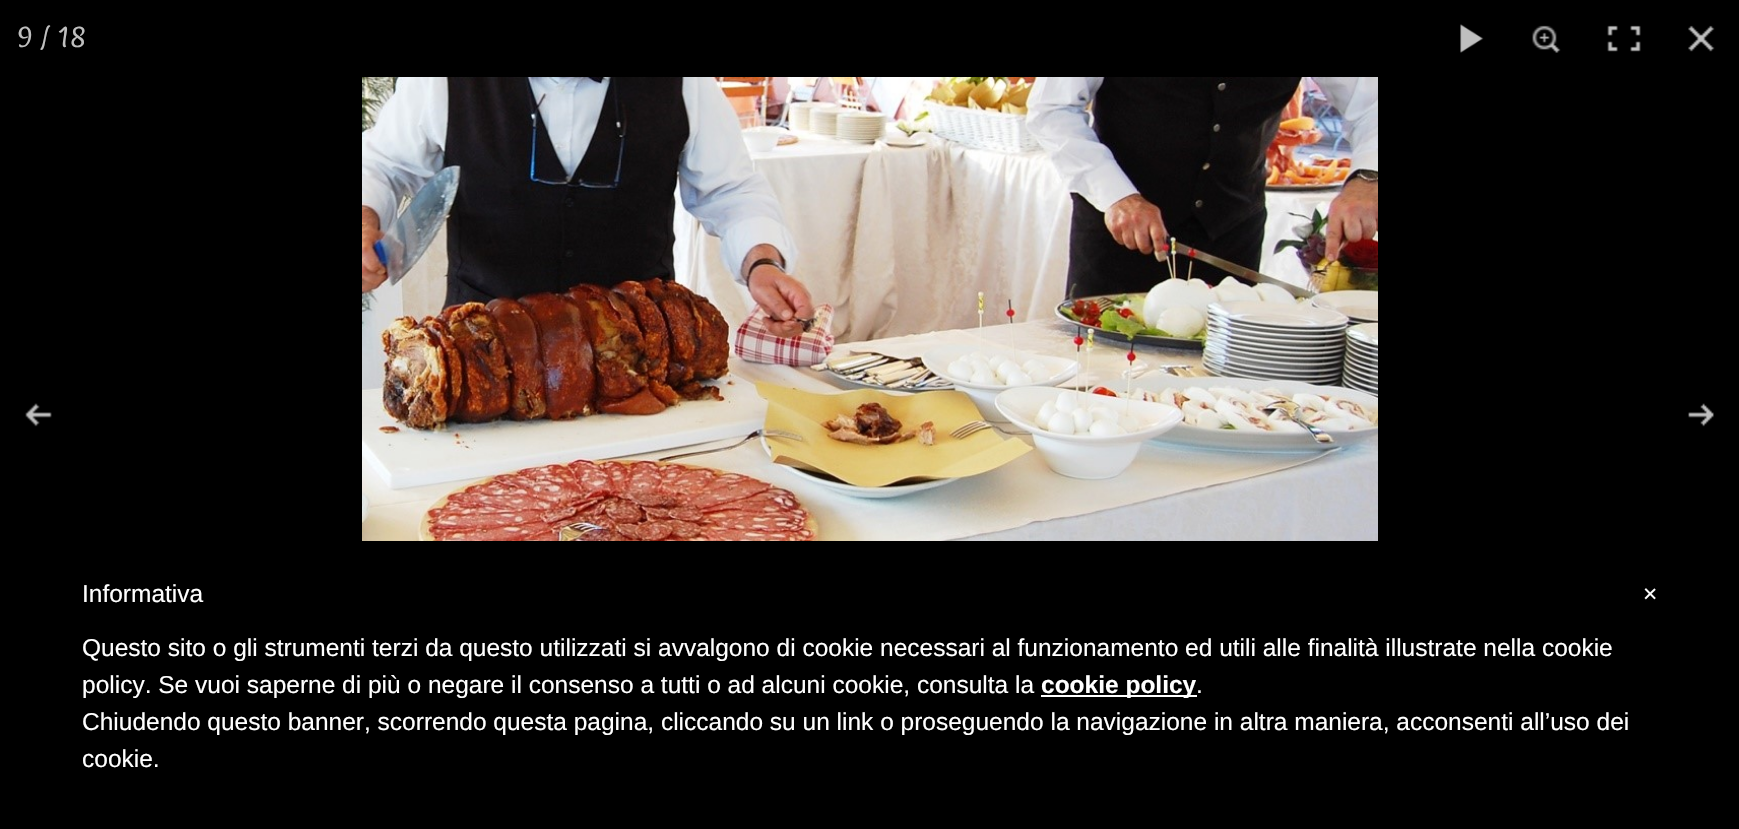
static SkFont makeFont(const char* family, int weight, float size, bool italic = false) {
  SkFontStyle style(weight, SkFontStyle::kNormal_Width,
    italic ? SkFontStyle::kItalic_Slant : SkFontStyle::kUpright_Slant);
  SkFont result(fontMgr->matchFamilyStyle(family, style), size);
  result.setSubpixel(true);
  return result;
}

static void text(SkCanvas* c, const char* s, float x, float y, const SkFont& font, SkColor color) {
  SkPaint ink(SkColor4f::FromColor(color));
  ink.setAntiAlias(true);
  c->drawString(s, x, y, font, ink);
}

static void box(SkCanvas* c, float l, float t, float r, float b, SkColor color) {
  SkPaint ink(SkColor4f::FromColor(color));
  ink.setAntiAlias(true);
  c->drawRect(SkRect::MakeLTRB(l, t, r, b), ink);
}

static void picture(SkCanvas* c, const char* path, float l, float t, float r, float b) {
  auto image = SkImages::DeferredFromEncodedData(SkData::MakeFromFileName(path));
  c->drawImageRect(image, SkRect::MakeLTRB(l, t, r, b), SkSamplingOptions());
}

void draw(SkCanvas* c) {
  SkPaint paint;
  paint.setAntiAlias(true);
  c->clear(0xff000000);
  SkFont face1 = makeFont("Paprika", 400, 23);
  text(c, "9 / 18", 18, 47, face1, 0xffbfbfbf);
  picture(c, "img_01.png", 1460, 24, 1484, 53);
  picture(c, "img_02.png", 1532, 25, 1561, 53);
  picture(c, "img_03.png", 1607, 25, 1641, 52);
  picture(c, "img_04.png", 1688, 25, 1715, 52);
  picture(c, "img_05.png", 25, 403, 52, 427);
  picture(c, "img_06.png", 1688, 403, 1714, 427);
  picture(c, "img_07.png", 362, 77, 1378, 541);
  SkFont face2 = makeFont("Liberation Sans", 400, 24.5f);
  text(c, "Informativa", 82, 602, face2, 0xffffffff);
  text(c, "Questo sito o gli strumenti terzi da questo utilizzati si avvalgono di cookie necessari al funzionamento ed utili alle finalità illustrate nella cookie", 82, 656, face2, 0xffffffff);
  text(c, "policy. Se vuoi saperne di più o negare il consenso a tutti o ad alcuni cookie, consulta la", 82, 693, face2, 0xffffffff);
  box(c, 1041, 695, 1197, 697, 0xffffffff);
  SkFont face3 = makeFont("Liberation Sans", 700, 24.5f);
  text(c, "cookie policy", 1041, 693, face3, 0xffffffff);
  text(c, ".", 1196, 693, face2, 0xffffffff);
  text(c, "Chiudendo questo banner, scorrendo questa pagina, cliccando su un link o proseguendo la navigazione in altra maniera, acconsenti all’uso dei", 82, 730, face2, 0xffffffff);
  text(c, "cookie.", 82, 767, face2, 0xffffffff);
  text(c, "×", 1643, 602, face2, 0xffffffff);
}
